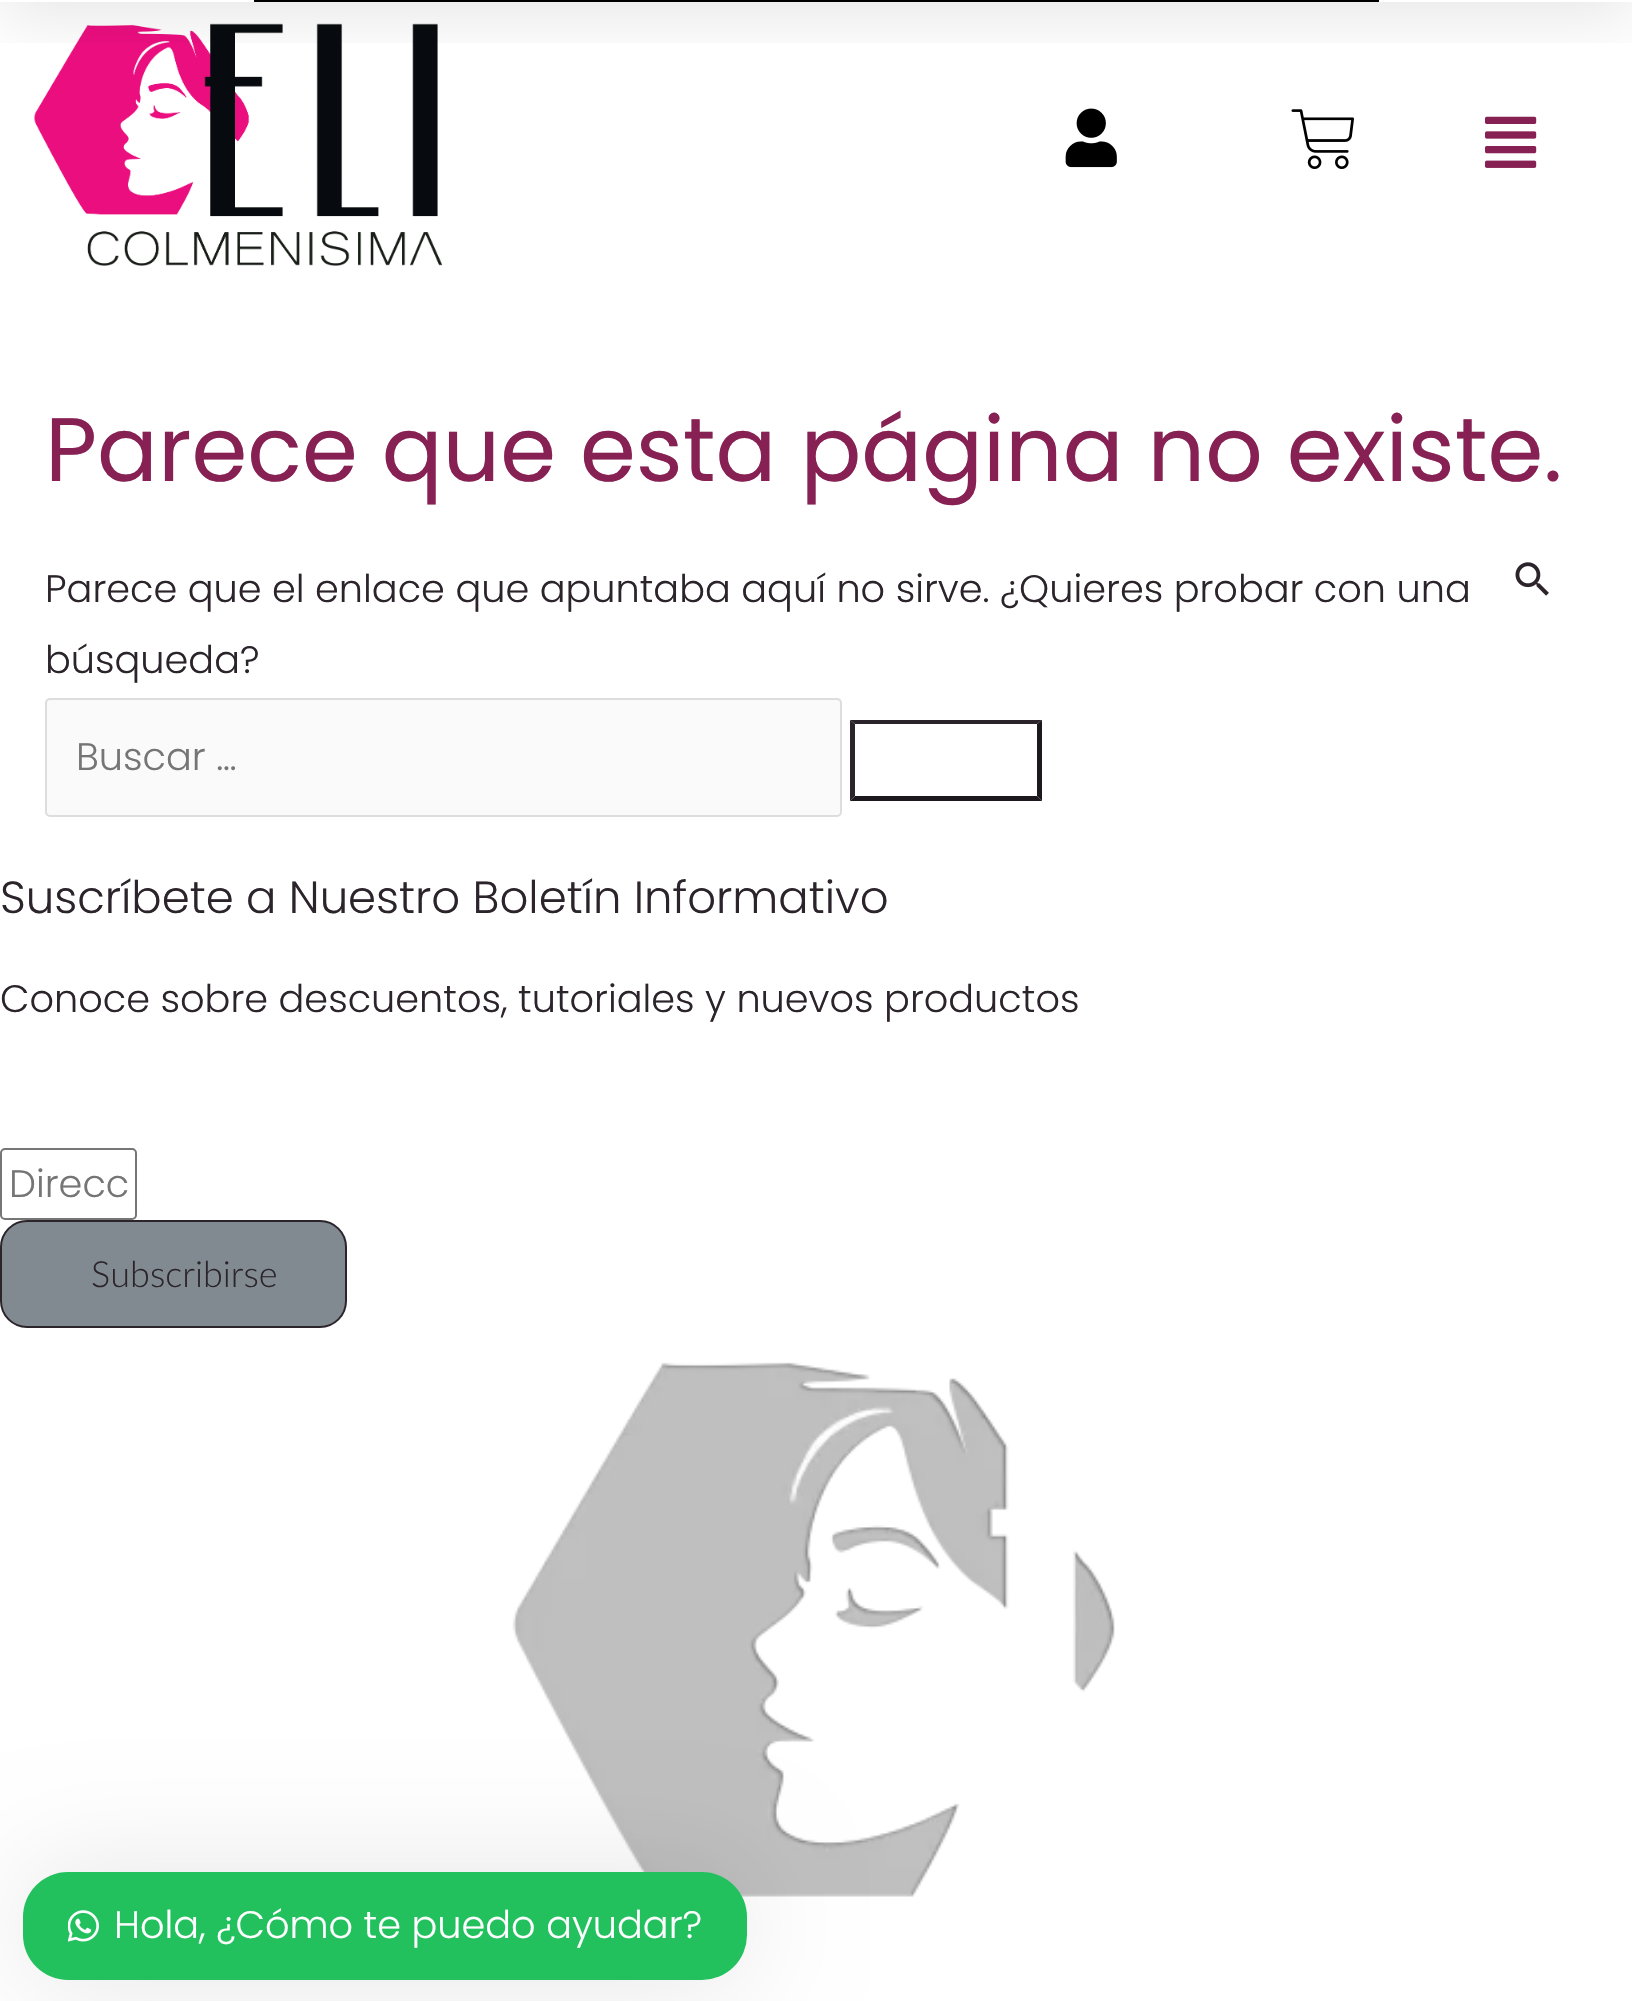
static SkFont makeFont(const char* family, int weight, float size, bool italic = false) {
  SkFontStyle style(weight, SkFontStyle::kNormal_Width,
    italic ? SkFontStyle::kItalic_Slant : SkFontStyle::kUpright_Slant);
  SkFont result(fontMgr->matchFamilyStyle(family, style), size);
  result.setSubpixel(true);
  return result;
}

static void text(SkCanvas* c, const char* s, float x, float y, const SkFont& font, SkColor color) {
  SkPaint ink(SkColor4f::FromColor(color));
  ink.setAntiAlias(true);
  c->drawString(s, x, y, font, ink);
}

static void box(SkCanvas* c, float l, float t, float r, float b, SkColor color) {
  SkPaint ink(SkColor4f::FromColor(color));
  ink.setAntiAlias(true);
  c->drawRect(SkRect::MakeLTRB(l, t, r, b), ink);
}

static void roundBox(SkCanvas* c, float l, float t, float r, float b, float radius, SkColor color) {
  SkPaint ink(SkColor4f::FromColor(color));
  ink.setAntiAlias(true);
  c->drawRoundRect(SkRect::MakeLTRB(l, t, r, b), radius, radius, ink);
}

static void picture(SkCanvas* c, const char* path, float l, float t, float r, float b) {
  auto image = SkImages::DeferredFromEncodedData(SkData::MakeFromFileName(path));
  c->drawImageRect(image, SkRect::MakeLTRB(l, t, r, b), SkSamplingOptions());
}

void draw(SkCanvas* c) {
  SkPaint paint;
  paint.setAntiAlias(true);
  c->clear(0xffffffff);
  picture(c, "img_01.png", 34, 23, 443, 266);
  picture(c, "img_02.png", 1065, 108, 1117, 168);
  picture(c, "img_03.png", 1291, 109, 1354, 169);
  picture(c, "img_04.png", 1485, 116, 1537, 168);
  c->save();
  c->clipRect(SkRect::MakeLTRB(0, 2, 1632, 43));
  paint.setColor(0x1a000000);
  paint.setMaskFilter(SkMaskFilter::MakeBlur(kNormal_SkBlurStyle, 34));
  c->drawRect(SkRect::MakeLTRB(0, -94, 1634, 14), paint);
  paint.setMaskFilter(nullptr);
  c->restore();
  box(c, 254, 0, 1379, 2, 0xff000000);
  SkFont face1 = makeFont("Poppins", 400, 90);
  text(c, "Parece que esta página no existe.", 45, 481, face1, 0xff872053);
  SkFont face2 = makeFont("Poppins", 300, 38.25f);
  text(c, "Parece que el enlace que apuntaba aquí no sirve. ¿Quieres probar con una", 45, 602, face2, 0xff2b242b);
  text(c, "búsqueda?", 45, 673, face2, 0xff2b242b);
  picture(c, "img_05.png", 1515, 562, 1549, 596);
  paint.setColor(0xfffafafa);
  c->drawRoundRect(SkRect::MakeLTRB(46, 699, 841, 816), 4, 4, paint);
  paint.setStyle(SkPaint::kStroke_Style);
  paint.setStrokeWidth(2);
  paint.setColor(0xffdddddd);
  c->drawRoundRect(SkRect::MakeLTRB(46, 699, 841, 816), 4, 4, paint);
  text(c, "Buscar …", 76, 770, face2, 0xff757575);
  paint.setStyle(SkPaint::kFill_Style);
  paint.setColor(0xff2b242b);
  c->drawPath(SkPathBuilder().moveTo(850, 720).lineTo(1042, 720).lineTo(1037, 724).lineTo(855, 724).close().detach(), paint);
  paint.setColor(0xff1d181d);
  c->drawPath(SkPathBuilder().moveTo(1042, 720).lineTo(1042, 801).lineTo(1037, 796).lineTo(1037, 724).close().detach(), paint);
  c->drawPath(SkPathBuilder().moveTo(1042, 801).lineTo(850, 801).lineTo(855, 796).lineTo(1037, 796).close().detach(), paint);
  paint.setColor(0xff2b242b);
  c->drawPath(SkPathBuilder().moveTo(850, 801).lineTo(850, 720).lineTo(855, 724).lineTo(855, 796).close().detach(), paint);
  SkFont face3 = makeFont("Poppins", 300, 45);
  text(c, "Suscríbete a Nuestro Boletín Informativo", 0, 913, face3, 0xff2b242b);
  text(c, "Conoce sobre descuentos, tutoriales y nuevos productos", 0, 1012, face2, 0xff2b242b);
  paint.setStyle(SkPaint::kStroke_Style);
  paint.setColor(0xff767676);
  c->drawRoundRect(SkRect::MakeLTRB(1, 1149, 136, 1219), 4, 4, paint);
  text(c, "Direcc", 9, 1197, face2, 0xff757575);
  paint.setStyle(SkPaint::kFill_Style);
  paint.setColor(0xff818a91);
  c->drawRoundRect(SkRect::MakeLTRB(1, 1221, 346, 1327), 26, 26, paint);
  paint.setStyle(SkPaint::kStroke_Style);
  paint.setColor(0xff2b242b);
  c->drawRoundRect(SkRect::MakeLTRB(1, 1221, 346, 1327), 26, 26, paint);
  SkFont face4 = makeFont("Lato", 300, 36);
  text(c, "Subscribirse", 91, 1287, face4, 0xff2b242b);
  picture(c, "img_06.png", 512, 1362, 1115, 1897);
  paint.setStyle(SkPaint::kFill_Style);
  paint.setColor(0x1a000000);
  paint.setMaskFilter(SkMaskFilter::MakeBlur(kNormal_SkBlurStyle, 56));
  c->drawRoundRect(SkRect::MakeLTRB(23, 1872, 747, 1980), 45, 45, paint);
  paint.setMaskFilter(nullptr);
  roundBox(c, 23, 1872, 747, 1980, 45, 0xff22c15e);
  picture(c, "img_07.png", 68, 1910, 99, 1942);
  text(c, "Hola, ¿Cómo te puedo ayudar?", 114, 1938, face2, 0xffffffff);
}
